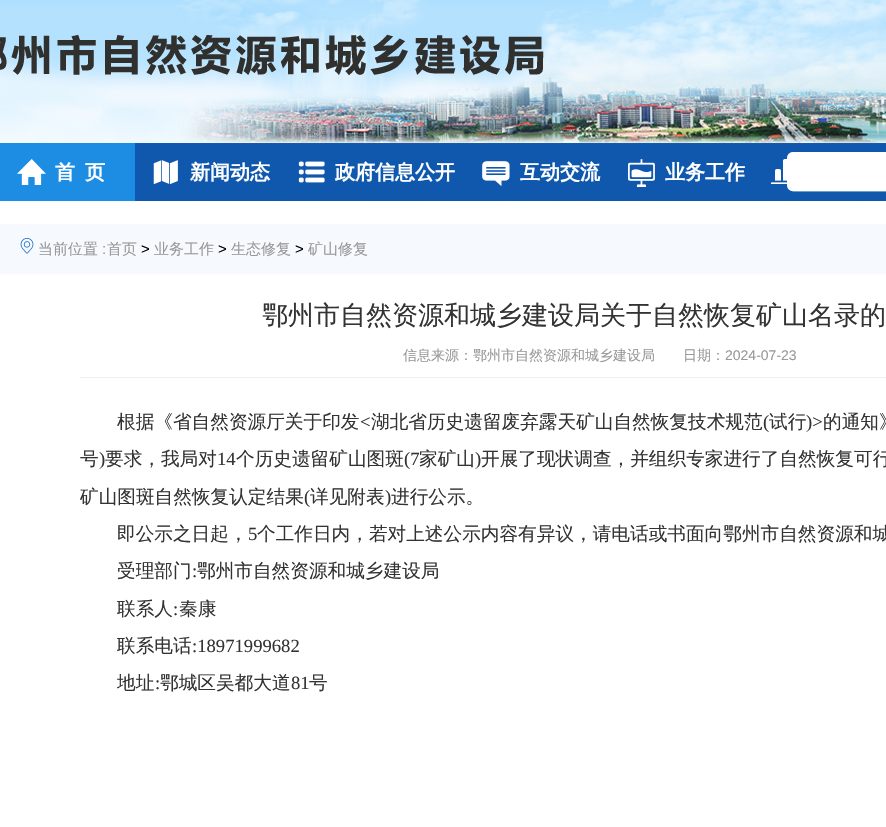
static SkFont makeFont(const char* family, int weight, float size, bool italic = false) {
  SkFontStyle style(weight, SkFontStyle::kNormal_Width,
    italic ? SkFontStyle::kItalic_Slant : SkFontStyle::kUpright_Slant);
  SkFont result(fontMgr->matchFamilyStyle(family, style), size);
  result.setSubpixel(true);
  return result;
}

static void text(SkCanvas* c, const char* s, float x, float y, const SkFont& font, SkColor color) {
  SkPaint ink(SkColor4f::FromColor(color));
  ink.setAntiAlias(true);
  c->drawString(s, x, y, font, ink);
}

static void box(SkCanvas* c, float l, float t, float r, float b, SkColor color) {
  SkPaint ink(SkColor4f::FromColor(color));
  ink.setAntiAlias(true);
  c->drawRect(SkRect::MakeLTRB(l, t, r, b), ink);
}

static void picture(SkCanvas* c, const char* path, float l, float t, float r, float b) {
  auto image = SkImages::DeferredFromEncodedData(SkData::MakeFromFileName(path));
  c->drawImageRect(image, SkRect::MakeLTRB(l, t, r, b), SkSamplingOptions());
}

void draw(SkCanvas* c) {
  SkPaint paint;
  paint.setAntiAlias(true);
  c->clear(0xffffffff);
  picture(c, "img_01.png", 0, 0, 886, 201);
  box(c, 0, 143, 135, 201, 0xff1d8de3);
  picture(c, "img_02.png", 17, 159, 46, 185);
  SkFont face1 = makeFont("WenQuanYi Zen Hei", 700, 20);
  text(c, "首", 55, 179, face1, 0xffffffff);
  text(c, "页", 85, 179, face1, 0xffffffff);
  picture(c, "img_03.png", 153, 160, 178, 185);
  text(c, "新闻动态", 190, 179, face1, 0xffffffff);
  picture(c, "img_04.png", 298, 161, 325, 183);
  text(c, "政府信息公开", 335, 179, face1, 0xffffffff);
  picture(c, "img_05.png", 482, 161, 510, 187);
  text(c, "互动交流", 520, 179, face1, 0xffffffff);
  picture(c, "img_06.png", 628, 159, 655, 187);
  text(c, "业务工作", 665, 179, face1, 0xffffffff);
  picture(c, "img_07.png", 771, 159, 788, 184);
  box(c, 0, 224, 886, 274, 0xfff6faff);
  picture(c, "img_08.png", 20, 238, 34, 254);
  SkFont face2 = makeFont("WenQuanYi Zen Hei", 500, 15);
  text(c, "当前位置", 38, 254, face2, 0xff999999);
  SkFont face3 = makeFont("Liberation Sans", 400, 15);
  text(c, ":", 102, 254, face3, 0xff999999);
  text(c, "首页", 107, 254, face2, 0xff999999);
  text(c, ">", 141, 254, face3, 0xff000000);
  text(c, "业务工作", 154, 254, face2, 0xff999999);
  text(c, ">", 218, 254, face3, 0xff000000);
  text(c, "生态修复", 231, 254, face2, 0xff999999);
  text(c, ">", 295, 254, face3, 0xff000000);
  text(c, "矿山修复", 308, 254, face2, 0xff999999);
  box(c, 80, 377, 886, 378, 0xffeeeeee);
  SkFont face4 = makeFont("WenQuanYi Zen Hei", 500, 26);
  text(c, "鄂州市自然资源和城乡建设局关于自然恢复矿山名录的", 262, 324, face4, 0xff333333);
  SkFont face5 = makeFont("WenQuanYi Zen Hei", 500, 14);
  text(c, "信息来源：鄂州市自然资源和城乡建设局", 403, 360, face5, 0xff999999);
  text(c, "日期：", 683, 360, face5, 0xff999999);
  SkFont face6 = makeFont("Liberation Sans", 400, 14);
  text(c, "2024-07-23", 725, 360, face6, 0xff999999);
  SkFont face7 = makeFont("WenQuanYi Zen Hei", 500, 18.65f);
  text(c, "根据《省自然资源厅关于印发", 117, 428, face7, 0xff333333);
  SkFont face8 = makeFont("Liberation Serif", 400, 18.65f);
  text(c, "<", 360, 428, face8, 0xff333333);
  text(c, "湖北省历史遗留废弃露天矿山自然恢复技术规范", 371, 428, face7, 0xff333333);
  text(c, "(", 763, 428, face8, 0xff333333);
  text(c, "试行", 769, 428, face7, 0xff333333);
  text(c, ")>", 806, 428, face8, 0xff333333);
  text(c, "的通知》", 823, 428, face7, 0xff333333);
  text(c, "号", 80, 465, face7, 0xff333333);
  text(c, ")", 99, 465, face8, 0xff333333);
  text(c, "要求，我局对", 105, 465, face7, 0xff333333);
  text(c, "14", 217, 465, face8, 0xff333333);
  text(c, "个历史遗留矿山图斑", 236, 465, face7, 0xff333333);
  text(c, "(7", 404, 465, face8, 0xff333333);
  text(c, "家矿山", 419, 465, face7, 0xff333333);
  text(c, ")", 475, 465, face8, 0xff333333);
  text(c, "开展了现状调查，并组织专家进行了自然恢复可行", 481, 465, face7, 0xff333333);
  text(c, "矿山图斑自然恢复认定结果", 80, 503, face7, 0xff333333);
  text(c, "(", 304, 503, face8, 0xff333333);
  text(c, "详见附表", 310, 503, face7, 0xff333333);
  text(c, ")", 385, 503, face8, 0xff333333);
  text(c, "进行公示。", 391, 503, face7, 0xff333333);
  text(c, "即公示之日起，", 117, 540, face7, 0xff333333);
  text(c, "5", 248, 540, face8, 0xff333333);
  text(c, "个工作日内，若对上述公示内容有异议，请电话或书面向鄂州市自然资源和城", 257, 540, face7, 0xff333333);
  text(c, "受理部门", 117, 577, face7, 0xff333333);
  text(c, ":", 192, 577, face8, 0xff333333);
  text(c, "鄂州市自然资源和城乡建设局", 197, 577, face7, 0xff333333);
  text(c, "联系人", 117, 615, face7, 0xff333333);
  text(c, ":", 173, 615, face8, 0xff333333);
  text(c, "秦康", 179, 615, face7, 0xff333333);
  text(c, "联系电话", 117, 652, face7, 0xff333333);
  text(c, ":18971999682", 192, 652, face8, 0xff333333);
  text(c, "地址", 117, 689, face7, 0xff333333);
  text(c, ":", 155, 689, face8, 0xff333333);
  text(c, "鄂城区吴都大道", 160, 689, face7, 0xff333333);
  text(c, "81", 291, 689, face8, 0xff333333);
  text(c, "号", 309, 689, face7, 0xff333333);
}
